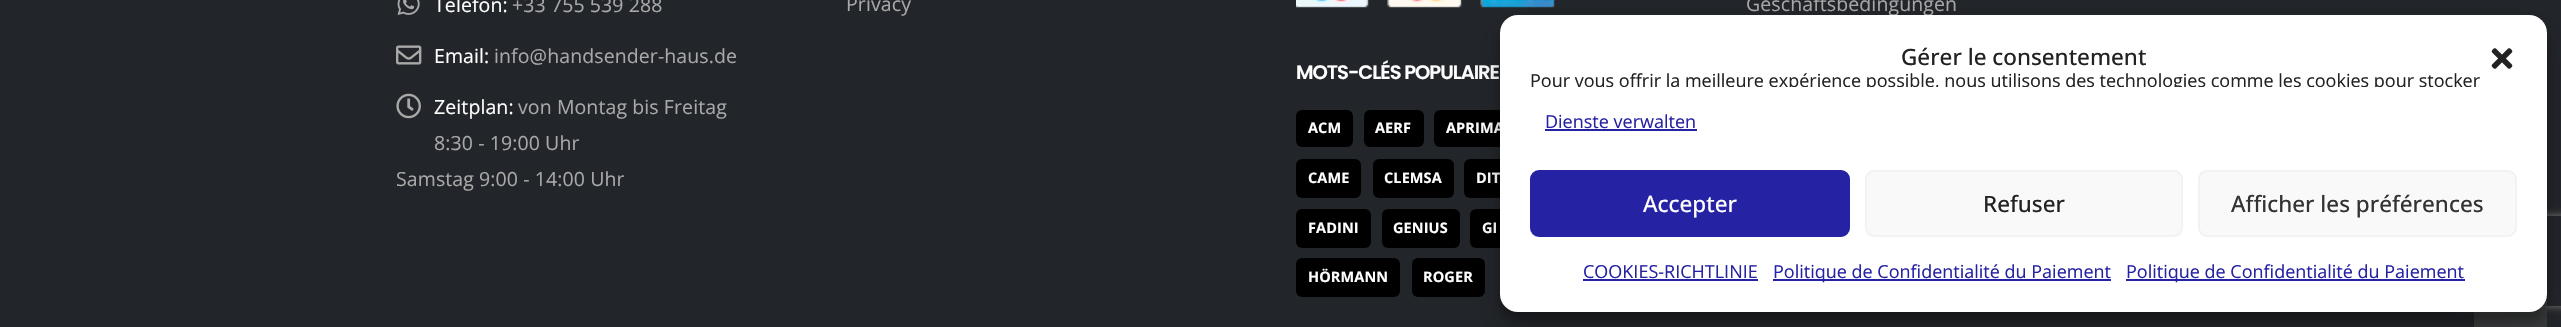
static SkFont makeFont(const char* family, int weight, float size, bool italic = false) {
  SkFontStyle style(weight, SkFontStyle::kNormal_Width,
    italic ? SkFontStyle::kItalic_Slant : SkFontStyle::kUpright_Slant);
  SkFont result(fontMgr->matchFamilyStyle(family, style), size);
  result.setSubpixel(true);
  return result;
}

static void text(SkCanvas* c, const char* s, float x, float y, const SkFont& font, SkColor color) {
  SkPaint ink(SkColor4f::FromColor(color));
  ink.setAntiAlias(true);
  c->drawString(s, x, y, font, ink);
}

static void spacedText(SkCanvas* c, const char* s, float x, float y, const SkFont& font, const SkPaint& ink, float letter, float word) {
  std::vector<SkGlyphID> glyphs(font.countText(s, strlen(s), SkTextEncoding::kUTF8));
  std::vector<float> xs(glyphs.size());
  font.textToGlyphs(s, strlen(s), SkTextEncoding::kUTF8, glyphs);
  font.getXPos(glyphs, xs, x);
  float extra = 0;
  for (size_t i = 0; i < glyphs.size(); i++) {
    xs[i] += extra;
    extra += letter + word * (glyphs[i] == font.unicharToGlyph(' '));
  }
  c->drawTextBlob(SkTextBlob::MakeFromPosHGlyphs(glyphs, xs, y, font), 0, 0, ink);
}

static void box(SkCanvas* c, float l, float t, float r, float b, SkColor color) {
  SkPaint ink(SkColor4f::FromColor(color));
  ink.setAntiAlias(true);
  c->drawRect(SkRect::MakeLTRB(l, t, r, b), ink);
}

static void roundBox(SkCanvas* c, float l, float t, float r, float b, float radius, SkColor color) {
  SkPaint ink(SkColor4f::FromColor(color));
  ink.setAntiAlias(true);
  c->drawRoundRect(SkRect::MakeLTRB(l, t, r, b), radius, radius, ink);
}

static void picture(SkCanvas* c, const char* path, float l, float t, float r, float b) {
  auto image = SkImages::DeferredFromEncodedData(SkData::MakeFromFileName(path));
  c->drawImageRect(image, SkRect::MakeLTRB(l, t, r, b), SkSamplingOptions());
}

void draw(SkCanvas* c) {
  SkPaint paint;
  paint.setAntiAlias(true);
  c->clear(0xff222529);
  picture(c, "img_01.png", 397, 0, 420, 15);
  SkFont face1 = makeFont("Open Sans", 400, 19.5f);
  paint.setColor(0xffffffff);
  spacedText(c, "Telefon:", 434, 12, face1, paint, 0.1f, 0);
  paint.setColor(0xffa8a8a8);
  spacedText(c, "+33 755 539 288", 512, 12, face1, paint, 0.1f, 0);
  picture(c, "img_02.png", 396, 45, 422, 65);
  paint.setColor(0xffffffff);
  spacedText(c, "Email:", 434, 63, face1, paint, 0.1f, 0);
  paint.setColor(0xffa8a8a8);
  spacedText(c, "info@handsender-haus.de", 494, 63, face1, paint, 0.1f, 0);
  picture(c, "img_03.png", 396, 93, 421, 119);
  paint.setColor(0xffffffff);
  spacedText(c, "Zeitplan:", 434, 114, face1, paint, 0.1f, 0);
  paint.setColor(0xffa8a8a8);
  spacedText(c, "von Montag bis Freitag", 518, 114, face1, paint, 0.1f, 0);
  spacedText(c, "8:30 - 19:00 Uhr", 434, 150, face1, paint, 0.1f, 0);
  spacedText(c, "Samstag 9:00 - 14:00 Uhr", 396, 186, face1, paint, 0.1f, 0);
  spacedText(c, "Privacy", 846, 11, face1, paint, 0.1f, 0);
  spacedText(c, "Geschäftsbedingungen", 1746, 11, face1, paint, 0.1f, 0);
  picture(c, "img_04.png", 1296, 0, 1555, 8);
  SkFont face2 = makeFont("Poppins", 600, 19.5f);
  paint.setColor(0xffffffff);
  spacedText(c, "MOTS-CLÉS POPULAIRE", 1296, 79, face2, paint, -1, 0);
  roundBox(c, 1296, 110, 1353, 147, 6, 0xff000000);
  SkFont face3 = makeFont("Open Sans", 700, 14.5f);
  spacedText(c, "ACM", 1308, 133, face3, paint, 0.1f, 0);
  roundBox(c, 1364, 110, 1424, 147, 6, 0xff000000);
  spacedText(c, "AERF", 1375, 133, face3, paint, 0.1f, 0);
  roundBox(c, 1434, 110, 1539, 147, 6, 0xff000000);
  spacedText(c, "APRIMA", 1446, 133, face3, paint, 0.1f, 0);
  roundBox(c, 1296, 159, 1361, 198, 6, 0xff000000);
  spacedText(c, "CAME", 1308, 183, face3, paint, 0.1f, 0);
  roundBox(c, 1373, 159, 1454, 198, 6, 0xff000000);
  spacedText(c, "CLEMSA", 1384, 183, face3, paint, 0.1f, 0);
  roundBox(c, 1464, 159, 1530, 198, 6, 0xff000000);
  spacedText(c, "DIT", 1476, 183, face3, paint, 0.1f, 0);
  roundBox(c, 1296, 209, 1371, 248, 6, 0xff000000);
  spacedText(c, "FADINI", 1308, 233, face3, paint, 0.1f, 0);
  roundBox(c, 1382, 209, 1460, 248, 6, 0xff000000);
  spacedText(c, "GENIUS", 1393, 233, face3, paint, 0.1f, 0);
  roundBox(c, 1470, 209, 1541, 248, 6, 0xff000000);
  spacedText(c, "GI", 1482, 233, face3, paint, 0.1f, 0);
  roundBox(c, 1296, 258, 1400, 297, 6, 0xff000000);
  spacedText(c, "HÖRMANN", 1308, 282, face3, paint, 0.1f, 0);
  roundBox(c, 1412, 258, 1485, 297, 6, 0xff000000);
  spacedText(c, "ROGER", 1423, 282, face3, paint, 0.1f, 0);
  c->save();
  c->clipPath(SkPathBuilder(SkPathFillType::kEvenOdd).moveTo(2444, 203).lineTo(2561, 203).lineTo(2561, 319).lineTo(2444, 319).close().moveTo(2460, 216).lineTo(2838, 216).cubicTo(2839.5f, 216, 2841, 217.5f, 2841, 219).lineTo(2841, 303).cubicTo(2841, 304.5f, 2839.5f, 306, 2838, 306).lineTo(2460, 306).cubicTo(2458.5f, 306, 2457, 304.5f, 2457, 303).lineTo(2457, 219).cubicTo(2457, 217.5f, 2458.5f, 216, 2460, 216).close().detach(), true);
  paint.setColor(0xff808080);
  paint.setMaskFilter(SkMaskFilter::MakeBlur(kNormal_SkBlurStyle, 4));
  c->drawRoundRect(SkRect::MakeLTRB(2457, 216, 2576, 306), 3, 3, paint);
  paint.setMaskFilter(nullptr);
  c->restore();
  box(c, 2474, 294, 2547, 327, 0xbf404040);
  paint.setColor(0x3b000000);
  paint.setMaskFilter(SkMaskFilter::MakeBlur(kNormal_SkBlurStyle, 4.5f));
  c->drawRoundRect(SkRect::MakeLTRB(1500, 24, 2547, 321), 18, 18, paint);
  paint.setMaskFilter(nullptr);
  paint.setColor(0x30000000);
  paint.setMaskFilter(SkMaskFilter::MakeBlur(kNormal_SkBlurStyle, 15));
  c->drawRoundRect(SkRect::MakeLTRB(1500, 30, 2547, 327), 18, 18, paint);
  paint.setMaskFilter(nullptr);
  roundBox(c, 1500, 15, 2547, 312, 18, 0xffffffff);
  SkFont face4 = makeFont("Open Sans", 500, 22.5f);
  text(c, "Gérer le consentement", 1901, 65, face4, 0xff222222);
  picture(c, "img_05.png", 2491, 48, 2513, 69);
  c->save();
  c->clipRect(SkRect::MakeLTRB(1530, 68, 2517, 87));
  SkFont face5 = makeFont("Open Sans", 400, 18);
  text(c, "Pour vous offrir la meilleure expérience possible, nous utilisons des technologies comme les cookies pour stocker", 1530, 87, face5, 0xff222222);
  c->restore();
  text(c, "Dienste verwalten", 1545, 128, face5, 0xff2522a3);
  box(c, 1545, 129, 1697, 131, 0xff2522a3);
  paint.setColor(0xff2522a3);
  c->drawRoundRect(SkRect::MakeLTRB(1531, 171, 1849, 236), 8, 8, paint);
  paint.setStyle(SkPaint::kStroke_Style);
  paint.setStrokeWidth(2);
  c->drawRoundRect(SkRect::MakeLTRB(1531, 171, 1849, 236), 8, 8, paint);
  text(c, "Accepter", 1643, 212, face4, 0xffffffff);
  paint.setStyle(SkPaint::kFill_Style);
  paint.setColor(0xfff9f9f9);
  c->drawRoundRect(SkRect::MakeLTRB(1866, 171, 2182, 236), 8, 8, paint);
  paint.setStyle(SkPaint::kStroke_Style);
  paint.setColor(0xfff2f2f2);
  c->drawRoundRect(SkRect::MakeLTRB(1866, 171, 2182, 236), 8, 8, paint);
  text(c, "Refuser", 1983, 212, face4, 0xff222222);
  paint.setStyle(SkPaint::kFill_Style);
  paint.setColor(0xfff9f9f9);
  c->drawRoundRect(SkRect::MakeLTRB(2199, 171, 2516, 236), 8, 8, paint);
  paint.setStyle(SkPaint::kStroke_Style);
  paint.setColor(0xfff2f2f2);
  c->drawRoundRect(SkRect::MakeLTRB(2199, 171, 2516, 236), 8, 8, paint);
  text(c, "Afficher les préférences", 2231, 212, face4, 0xff333333);
  text(c, "COOKIES-RICHTLINIE", 1583, 278, face5, 0xff2522a3);
  box(c, 1583, 279, 1758, 281, 0xff2522a3);
  box(c, 1773, 279, 2111, 281, 0xff2522a3);
  text(c, "Politique de Confidentialité du Paiement", 1773, 278, face5, 0xff2522a3);
  box(c, 2126, 279, 2465, 281, 0xff2522a3);
  text(c, "Politique de Confidentialité du Paiement", 2126, 278, face5, 0xff2522a3);
}
